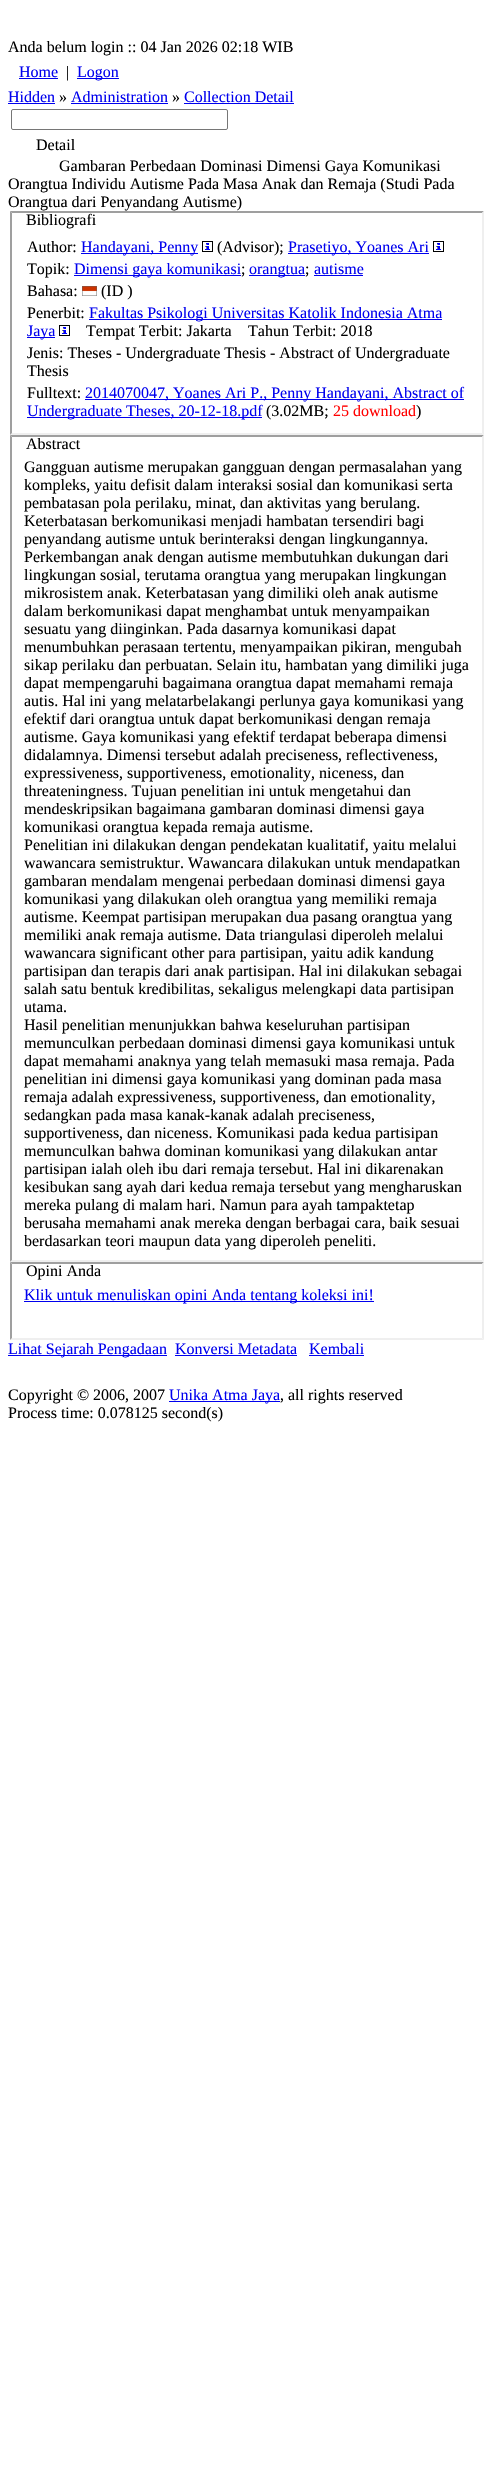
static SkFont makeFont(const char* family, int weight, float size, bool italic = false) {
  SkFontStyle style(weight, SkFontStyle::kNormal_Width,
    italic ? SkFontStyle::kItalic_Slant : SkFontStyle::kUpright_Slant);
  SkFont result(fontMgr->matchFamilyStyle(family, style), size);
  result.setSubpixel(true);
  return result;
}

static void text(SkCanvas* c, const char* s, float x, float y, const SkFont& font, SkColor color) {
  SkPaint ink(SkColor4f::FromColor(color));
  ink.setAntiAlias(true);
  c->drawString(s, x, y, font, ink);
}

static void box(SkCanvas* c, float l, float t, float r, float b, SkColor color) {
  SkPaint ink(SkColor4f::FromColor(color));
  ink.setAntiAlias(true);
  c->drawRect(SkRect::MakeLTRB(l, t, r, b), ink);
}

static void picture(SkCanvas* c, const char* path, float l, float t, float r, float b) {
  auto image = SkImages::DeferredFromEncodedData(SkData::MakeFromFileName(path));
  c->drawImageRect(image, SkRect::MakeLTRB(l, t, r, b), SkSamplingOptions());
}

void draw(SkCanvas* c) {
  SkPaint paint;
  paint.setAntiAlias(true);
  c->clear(0xffffffff);
  SkFont face1 = makeFont("Liberation Serif", 400, 16);
  text(c, "Anda belum login :: 04 Jan 2026 02:18 WIB", 8, 52, face1, 0xff000000);
  text(c, "Home", 19, 77, face1, 0xff0000ee);
  box(c, 19, 78, 58, 79, 0xff0000ee);
  text(c, "|", 66, 77, face1, 0xff000000);
  box(c, 77, 78, 119, 79, 0xff0000ee);
  text(c, "Logon", 77, 77, face1, 0xff0000ee);
  text(c, "Hidden", 8, 102, face1, 0xff0000ee);
  box(c, 8, 103, 55, 104, 0xff0000ee);
  text(c, "»", 59, 102, face1, 0xff000000);
  text(c, "Administration", 71, 102, face1, 0xff0000ee);
  box(c, 71, 103, 168, 104, 0xff0000ee);
  text(c, "»", 172, 102, face1, 0xff000000);
  text(c, "Collection Detail", 184, 102, face1, 0xff0000ee);
  box(c, 184, 103, 294, 104, 0xff0000ee);
  paint.setStyle(SkPaint::kStroke_Style);
  paint.setStrokeWidth(1);
  paint.setColor(0xff767676);
  c->drawRoundRect(SkRect::MakeLTRB(11.5f, 109.5f, 227.5f, 129.5f), 1.5f, 1.5f, paint);
  text(c, "Detail", 36, 150, face1, 0xff000000);
  text(c, "Gambaran Perbedaan Dominasi Dimensi Gaya Komunikasi", 59, 171, face1, 0xff000000);
  text(c, "Orangtua Individu Autisme Pada Masa Anak dan Remaja (Studi Pada", 8, 189, face1, 0xff000000);
  text(c, "Orangtua dari Penyandang Autisme)", 8, 207, face1, 0xff000000);
  paint.setStyle(SkPaint::kFill_Style);
  paint.setColor(0xff9f9f9f);
  c->drawPath(SkPathBuilder().moveTo(10, 211).lineTo(484, 211).lineTo(482, 213).lineTo(12, 213).close().detach(), paint);
  paint.setColor(0xffefefef);
  c->drawPath(SkPathBuilder().moveTo(484, 211).lineTo(484, 435).lineTo(482, 433).lineTo(482, 213).close().detach(), paint);
  c->drawPath(SkPathBuilder().moveTo(484, 435).lineTo(10, 435).lineTo(12, 433).lineTo(482, 433).close().detach(), paint);
  paint.setColor(0xff9f9f9f);
  c->drawPath(SkPathBuilder().moveTo(10, 435).lineTo(10, 211).lineTo(12, 213).lineTo(12, 433).close().detach(), paint);
  text(c, "Bibliografi", 26, 225, face1, 0xff000000);
  text(c, "Author:", 27, 252, face1, 0xff000000);
  box(c, 81, 253, 198, 254, 0xff0000ee);
  text(c, "Handayani, Penny", 81, 252, face1, 0xff0000ee);
  picture(c, "img_01.png", 202, 241, 213, 252);
  text(c, "(Advisor);", 217, 252, face1, 0xff000000);
  box(c, 288, 253, 429, 254, 0xff0000ee);
  text(c, "Prasetiyo, Yoanes Ari", 288, 252, face1, 0xff0000ee);
  picture(c, "img_01.png", 433, 241, 444, 252);
  text(c, "Topik:", 27, 274, face1, 0xff000000);
  box(c, 74, 275, 241, 276, 0xff0000ee);
  text(c, "Dimensi gaya komunikasi", 74, 274, face1, 0xff0000ee);
  text(c, ";", 241, 274, face1, 0xff000000);
  box(c, 249, 275, 305, 276, 0xff0000ee);
  text(c, "orangtua", 249, 274, face1, 0xff0000ee);
  text(c, ";", 305, 274, face1, 0xff000000);
  text(c, "autisme", 314, 274, face1, 0xff0000ee);
  box(c, 314, 275, 363, 276, 0xff0000ee);
  text(c, "Bahasa:", 27, 296, face1, 0xff000000);
  picture(c, "img_02.png", 82, 286, 97, 296);
  text(c, "(ID )", 101, 296, face1, 0xff000000);
  text(c, "Penerbit:", 27, 318, face1, 0xff000000);
  box(c, 89, 319, 442, 320, 0xff0000ee);
  text(c, "Fakultas Psikologi Universitas Katolik Indonesia Atma", 89, 318, face1, 0xff0000ee);
  box(c, 27, 337, 55, 338, 0xff0000ee);
  text(c, "Jaya", 27, 336, face1, 0xff0000ee);
  picture(c, "img_01.png", 59, 325, 70, 336);
  text(c, "Tempat Terbit: Jakarta", 86, 336, face1, 0xff000000);
  text(c, "Tahun Terbit: 2018", 248, 336, face1, 0xff000000);
  text(c, "Jenis: Theses - Undergraduate Thesis - Abstract of Undergraduate", 27, 358, face1, 0xff000000);
  text(c, "Thesis", 27, 376, face1, 0xff000000);
  text(c, "Fulltext:", 27, 398, face1, 0xff000000);
  box(c, 85, 399, 464, 400, 0xff0000ee);
  text(c, "2014070047, Yoanes Ari P., Penny Handayani, Abstract of", 85, 398, face1, 0xff0000ee);
  box(c, 27, 417, 262, 418, 0xff0000ee);
  text(c, "Undergraduate Theses, 20-12-18.pdf", 27, 416, face1, 0xff0000ee);
  text(c, "(3.02MB;", 266, 416, face1, 0xff000000);
  text(c, "25 download", 333, 416, face1, 0xffff0000);
  text(c, ")", 416, 416, face1, 0xff000000);
  c->drawPath(SkPathBuilder().moveTo(10, 435).lineTo(484, 435).lineTo(482, 437).lineTo(12, 437).close().detach(), paint);
  paint.setColor(0xffefefef);
  c->drawPath(SkPathBuilder().moveTo(484, 435).lineTo(484, 1262).lineTo(482, 1260).lineTo(482, 437).close().detach(), paint);
  c->drawPath(SkPathBuilder().moveTo(484, 1262).lineTo(10, 1262).lineTo(12, 1260).lineTo(482, 1260).close().detach(), paint);
  paint.setColor(0xff9f9f9f);
  c->drawPath(SkPathBuilder().moveTo(10, 1262).lineTo(10, 435).lineTo(12, 437).lineTo(12, 1260).close().detach(), paint);
  text(c, "Abstract", 26, 449, face1, 0xff000000);
  text(c, "Gangguan autisme merupakan gangguan dengan permasalahan yang", 24, 472, face1, 0xff000000);
  text(c, "kompleks, yaitu defisit dalam interaksi sosial dan komunikasi serta", 24, 490, face1, 0xff000000);
  text(c, "pembatasan pola perilaku, minat, dan aktivitas yang berulang.", 24, 508, face1, 0xff000000);
  text(c, "Keterbatasan berkomunikasi menjadi hambatan tersendiri bagi", 24, 526, face1, 0xff000000);
  text(c, "penyandang autisme untuk berinteraksi dengan lingkungannya.", 24, 544, face1, 0xff000000);
  text(c, "Perkembangan anak dengan autisme membutuhkan dukungan dari", 24, 562, face1, 0xff000000);
  text(c, "lingkungan sosial, terutama orangtua yang merupakan lingkungan", 24, 580, face1, 0xff000000);
  text(c, "mikrosistem anak. Keterbatasan yang dimiliki oleh anak autisme", 24, 598, face1, 0xff000000);
  text(c, "dalam berkomunikasi dapat menghambat untuk menyampaikan", 24, 616, face1, 0xff000000);
  text(c, "sesuatu yang diinginkan. Pada dasarnya komunikasi dapat", 24, 634, face1, 0xff000000);
  text(c, "menumbuhkan perasaan tertentu, menyampaikan pikiran, mengubah", 24, 652, face1, 0xff000000);
  text(c, "sikap perilaku dan perbuatan. Selain itu, hambatan yang dimiliki juga", 24, 670, face1, 0xff000000);
  text(c, "dapat mempengaruhi bagaimana orangtua dapat memahami remaja", 24, 688, face1, 0xff000000);
  text(c, "autis. Hal ini yang melatarbelakangi perlunya gaya komunikasi yang", 24, 706, face1, 0xff000000);
  text(c, "efektif dari orangtua untuk dapat berkomunikasi dengan remaja", 24, 724, face1, 0xff000000);
  text(c, "autisme. Gaya komunikasi yang efektif terdapat beberapa dimensi", 24, 742, face1, 0xff000000);
  text(c, "didalamnya. Dimensi tersebut adalah preciseness, reflectiveness,", 24, 760, face1, 0xff000000);
  text(c, "expressiveness, supportiveness, emotionality, niceness, dan", 24, 778, face1, 0xff000000);
  text(c, "threateningness. Tujuan penelitian ini untuk mengetahui dan", 24, 796, face1, 0xff000000);
  text(c, "mendeskripsikan bagaimana gambaran dominasi dimensi gaya", 24, 814, face1, 0xff000000);
  text(c, "komunikasi orangtua kepada remaja autisme.", 24, 832, face1, 0xff000000);
  text(c, "Penelitian ini dilakukan dengan pendekatan kualitatif, yaitu melalui", 24, 850, face1, 0xff000000);
  text(c, "wawancara semistruktur. Wawancara dilakukan untuk mendapatkan", 24, 868, face1, 0xff000000);
  text(c, "gambaran mendalam mengenai perbedaan dominasi dimensi gaya", 24, 886, face1, 0xff000000);
  text(c, "komunikasi yang dilakukan oleh orangtua yang memiliki remaja", 24, 904, face1, 0xff000000);
  text(c, "autisme. Keempat partisipan merupakan dua pasang orangtua yang", 24, 922, face1, 0xff000000);
  text(c, "memiliki anak remaja autisme. Data triangulasi diperoleh melalui", 24, 940, face1, 0xff000000);
  text(c, "wawancara significant other para partisipan, yaitu adik kandung", 24, 958, face1, 0xff000000);
  text(c, "partisipan dan terapis dari anak partisipan. Hal ini dilakukan sebagai", 24, 976, face1, 0xff000000);
  text(c, "salah satu bentuk kredibilitas, sekaligus melengkapi data partisipan", 24, 994, face1, 0xff000000);
  text(c, "utama.", 24, 1012, face1, 0xff000000);
  text(c, "Hasil penelitian menunjukkan bahwa keseluruhan partisipan", 24, 1030, face1, 0xff000000);
  text(c, "memunculkan perbedaan dominasi dimensi gaya komunikasi untuk", 24, 1048, face1, 0xff000000);
  text(c, "dapat memahami anaknya yang telah memasuki masa remaja. Pada", 24, 1066, face1, 0xff000000);
  text(c, "penelitian ini dimensi gaya komunikasi yang dominan pada masa", 24, 1084, face1, 0xff000000);
  text(c, "remaja adalah expressiveness, supportiveness, dan emotionality,", 24, 1102, face1, 0xff000000);
  text(c, "sedangkan pada masa kanak-kanak adalah preciseness,", 24, 1120, face1, 0xff000000);
  text(c, "supportiveness, dan niceness. Komunikasi pada kedua partisipan", 24, 1138, face1, 0xff000000);
  text(c, "memunculkan bahwa dominan komunikasi yang dilakukan antar", 24, 1156, face1, 0xff000000);
  text(c, "partisipan ialah oleh ibu dari remaja tersebut. Hal ini dikarenakan", 24, 1174, face1, 0xff000000);
  text(c, "kesibukan sang ayah dari kedua remaja tersebut yang mengharuskan", 24, 1192, face1, 0xff000000);
  text(c, "mereka pulang di malam hari. Namun para ayah tampaktetap", 24, 1210, face1, 0xff000000);
  text(c, "berusaha memahami anak mereka dengan berbagai cara, baik sesuai", 24, 1228, face1, 0xff000000);
  text(c, "berdasarkan teori maupun data yang diperoleh peneliti.", 24, 1246, face1, 0xff000000);
  c->drawPath(SkPathBuilder().moveTo(10, 1262).lineTo(484, 1262).lineTo(482, 1264).lineTo(12, 1264).close().detach(), paint);
  paint.setColor(0xffefefef);
  c->drawPath(SkPathBuilder().moveTo(484, 1262).lineTo(484, 1340).lineTo(482, 1338).lineTo(482, 1264).close().detach(), paint);
  c->drawPath(SkPathBuilder().moveTo(484, 1340).lineTo(10, 1340).lineTo(12, 1338).lineTo(482, 1338).close().detach(), paint);
  paint.setColor(0xff9f9f9f);
  c->drawPath(SkPathBuilder().moveTo(10, 1340).lineTo(10, 1262).lineTo(12, 1264).lineTo(12, 1338).close().detach(), paint);
  text(c, "Opini Anda", 26, 1276, face1, 0xff000000);
  box(c, 24, 1301, 374, 1302, 0xff0000ee);
  text(c, "Klik untuk menuliskan opini Anda tentang koleksi ini!", 24, 1300, face1, 0xff0000ee);
  box(c, 8, 1355, 167, 1356, 0xff0000ee);
  text(c, "Lihat Sejarah Pengadaan", 8, 1354, face1, 0xff0000ee);
  text(c, "Konversi Metadata", 175, 1354, face1, 0xff0000ee);
  box(c, 175, 1355, 297, 1356, 0xff0000ee);
  text(c, "Kembali", 309, 1354, face1, 0xff0000ee);
  box(c, 309, 1355, 364, 1356, 0xff0000ee);
  text(c, "Copyright © 2006, 2007", 8, 1400, face1, 0xff000000);
  box(c, 169, 1401, 280, 1402, 0xff0000ee);
  text(c, "Unika Atma Jaya", 169, 1400, face1, 0xff0000ee);
  text(c, ", all rights reserved", 280, 1400, face1, 0xff000000);
  text(c, "Process time: 0.078125 second(s)", 8, 1418, face1, 0xff000000);
}
